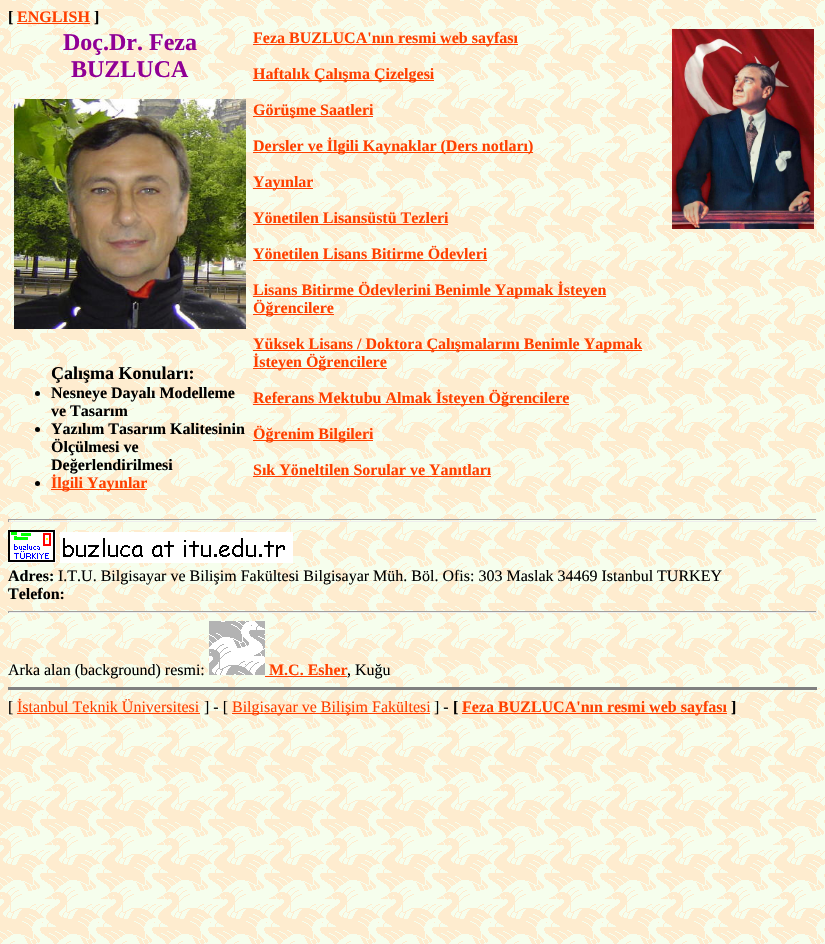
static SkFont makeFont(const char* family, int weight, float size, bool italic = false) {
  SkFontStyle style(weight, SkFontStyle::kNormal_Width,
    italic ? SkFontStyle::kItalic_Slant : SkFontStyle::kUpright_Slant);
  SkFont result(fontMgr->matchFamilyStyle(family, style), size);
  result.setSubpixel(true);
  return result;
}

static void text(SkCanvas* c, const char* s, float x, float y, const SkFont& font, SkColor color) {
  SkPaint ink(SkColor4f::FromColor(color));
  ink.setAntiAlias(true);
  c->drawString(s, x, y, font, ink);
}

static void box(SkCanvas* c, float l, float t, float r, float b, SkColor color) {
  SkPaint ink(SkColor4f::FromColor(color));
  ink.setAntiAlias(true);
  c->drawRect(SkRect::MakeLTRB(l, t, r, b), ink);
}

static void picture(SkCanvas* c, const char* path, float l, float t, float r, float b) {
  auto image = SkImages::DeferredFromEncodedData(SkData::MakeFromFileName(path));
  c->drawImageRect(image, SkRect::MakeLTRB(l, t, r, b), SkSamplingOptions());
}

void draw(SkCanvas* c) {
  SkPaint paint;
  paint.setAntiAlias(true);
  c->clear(0xffffffff);
  picture(c, "img_01.png", 0, 0, 825, 944);
  SkFont face1 = makeFont("Liberation Serif", 700, 16);
  text(c, "[", 8, 22, face1, 0xff000000);
  text(c, "ENGLISH", 17, 22, face1, 0xffff4000);
  box(c, 17, 23, 90, 24, 0xffff4000);
  text(c, "]", 94, 22, face1, 0xff000000);
  SkFont face2 = makeFont("Liberation Serif", 700, 24);
  text(c, "Doç.Dr. Feza", 63, 50, face2, 0xff900095);
  text(c, "BUZLUCA", 71, 77, face2, 0xff900095);
  picture(c, "img_02.png", 14, 99, 246, 329);
  SkFont face3 = makeFont("Liberation Serif", 700, 18);
  text(c, "Çalışma Konuları:", 51, 379, face3, 0xff000000);
  paint.setColor(0xff000000);
  c->drawCircle(37.5f, 393.5f, 2.5f, paint);
  text(c, "Nesneye Dayalı Modelleme", 51, 398, face1, 0xff000000);
  text(c, "ve Tasarım", 51, 416, face1, 0xff000000);
  c->drawCircle(37.5f, 429.5f, 2.5f, paint);
  text(c, "Yazılım Tasarım Kalitesinin", 51, 434, face1, 0xff000000);
  text(c, "Ölçülmesi ve", 51, 452, face1, 0xff000000);
  text(c, "Değerlendirilmesi", 51, 470, face1, 0xff000000);
  c->drawCircle(37.5f, 483.5f, 2.5f, paint);
  box(c, 51, 489, 147, 490, 0xffff4000);
  text(c, "İlgili Yayınlar", 51, 488, face1, 0xffff4000);
  box(c, 253, 44, 518, 45, 0xffff4000);
  text(c, "Feza BUZLUCA'nın resmi web sayfası", 253, 43, face1, 0xffff4000);
  box(c, 253, 80, 434, 81, 0xffff4000);
  text(c, "Haftalık Çalışma Çizelgesi", 253, 79, face1, 0xffff4000);
  box(c, 253, 116, 373, 117, 0xffff4000);
  text(c, "Görüşme Saatleri", 253, 115, face1, 0xffff4000);
  box(c, 253, 152, 533, 153, 0xffff4000);
  text(c, "Dersler ve İlgili Kaynaklar (Ders notları)", 253, 151, face1, 0xffff4000);
  box(c, 253, 188, 313, 189, 0xffff4000);
  text(c, "Yayınlar", 253, 187, face1, 0xffff4000);
  text(c, "Yönetilen Lisansüstü Tezleri", 253, 223, face1, 0xffff4000);
  box(c, 253, 224, 448, 225, 0xffff4000);
  text(c, "Yönetilen Lisans Bitirme Ödevleri", 253, 259, face1, 0xffff4000);
  box(c, 253, 260, 487, 261, 0xffff4000);
  box(c, 253, 296, 606, 297, 0xffff4000);
  text(c, "Lisans Bitirme Ödevlerini Benimle Yapmak İsteyen", 253, 295, face1, 0xffff4000);
  box(c, 253, 314, 334, 315, 0xffff4000);
  text(c, "Öğrencilere", 253, 313, face1, 0xffff4000);
  box(c, 253, 350, 642, 351, 0xffff4000);
  text(c, "Yüksek Lisans / Doktora Çalışmalarını Benimle Yapmak", 253, 349, face1, 0xffff4000);
  box(c, 253, 368, 387, 369, 0xffff4000);
  text(c, "İsteyen Öğrencilere", 253, 367, face1, 0xffff4000);
  box(c, 253, 404, 569, 405, 0xffff4000);
  text(c, "Referans Mektubu Almak İsteyen Öğrencilere", 253, 403, face1, 0xffff4000);
  box(c, 253, 440, 373, 441, 0xffff4000);
  text(c, "Öğrenim Bilgileri", 253, 439, face1, 0xffff4000);
  text(c, "Sık Yöneltilen Sorular ve Yanıtları", 253, 475, face1, 0xffff4000);
  box(c, 253, 476, 491, 477, 0xffff4000);
  picture(c, "img_03.png", 672, 29, 814, 229);
  box(c, 8, 519, 817, 520, 0xff9f9f9f);
  box(c, 816, 519, 817, 522, 0xffeeeeee);
  box(c, 8, 521, 817, 522, 0xffeeeeee);
  box(c, 8, 519, 9, 522, 0xff9f9f9f);
  picture(c, "img_04.png", 8, 530, 56, 563);
  picture(c, "img_05.png", 60, 532, 293, 563);
  text(c, "Adres:", 8, 581, face1, 0xff000000);
  SkFont face4 = makeFont("Liberation Serif", 400, 16);
  text(c, "I.T.U. Bilgisayar ve Bilişim Fakültesi Bilgisayar Müh. Böl. Ofis: 303 Maslak 34469 Istanbul TURKEY", 58, 581, face4, 0xff000000);
  text(c, "Telefon:", 8, 599, face1, 0xff000000);
  box(c, 8, 611, 817, 612, 0xff9f9f9f);
  box(c, 816, 611, 817, 613, 0xffeeeeee);
  box(c, 8, 612, 817, 613, 0xffeeeeee);
  box(c, 8, 611, 9, 613, 0xff9f9f9f);
  text(c, "Arka alan (background) resmi:", 8, 675, face4, 0xff000000);
  picture(c, "img_06.png", 209, 621, 265, 675);
  text(c, "M.C. Esher", 269, 675, face1, 0xffff4000);
  box(c, 265, 676, 347, 677, 0xffff4000);
  text(c, ", Kuğu", 347, 675, face4, 0xff000000);
  box(c, 8, 687, 817, 690, 0xff808080);
  text(c, "[", 8, 712, face4, 0xff000000);
  text(c, "İstanbul Teknik Üniversitesi", 17, 712, face4, 0xffff4000);
  box(c, 17, 713, 200, 714, 0xffff4000);
  text(c, "] - [", 204, 712, face4, 0xff000000);
  box(c, 232, 713, 430, 714, 0xffff4000);
  text(c, "Bilgisayar ve Bilişim Fakültesi", 232, 712, face4, 0xffff4000);
  text(c, "] -", 434, 712, face4, 0xff000000);
  text(c, "[", 453, 712, face1, 0xff000000);
  box(c, 462, 713, 727, 714, 0xffff4000);
  text(c, "Feza BUZLUCA'nın resmi web sayfası", 462, 712, face1, 0xffff4000);
  text(c, "]", 731, 712, face1, 0xff000000);
}
